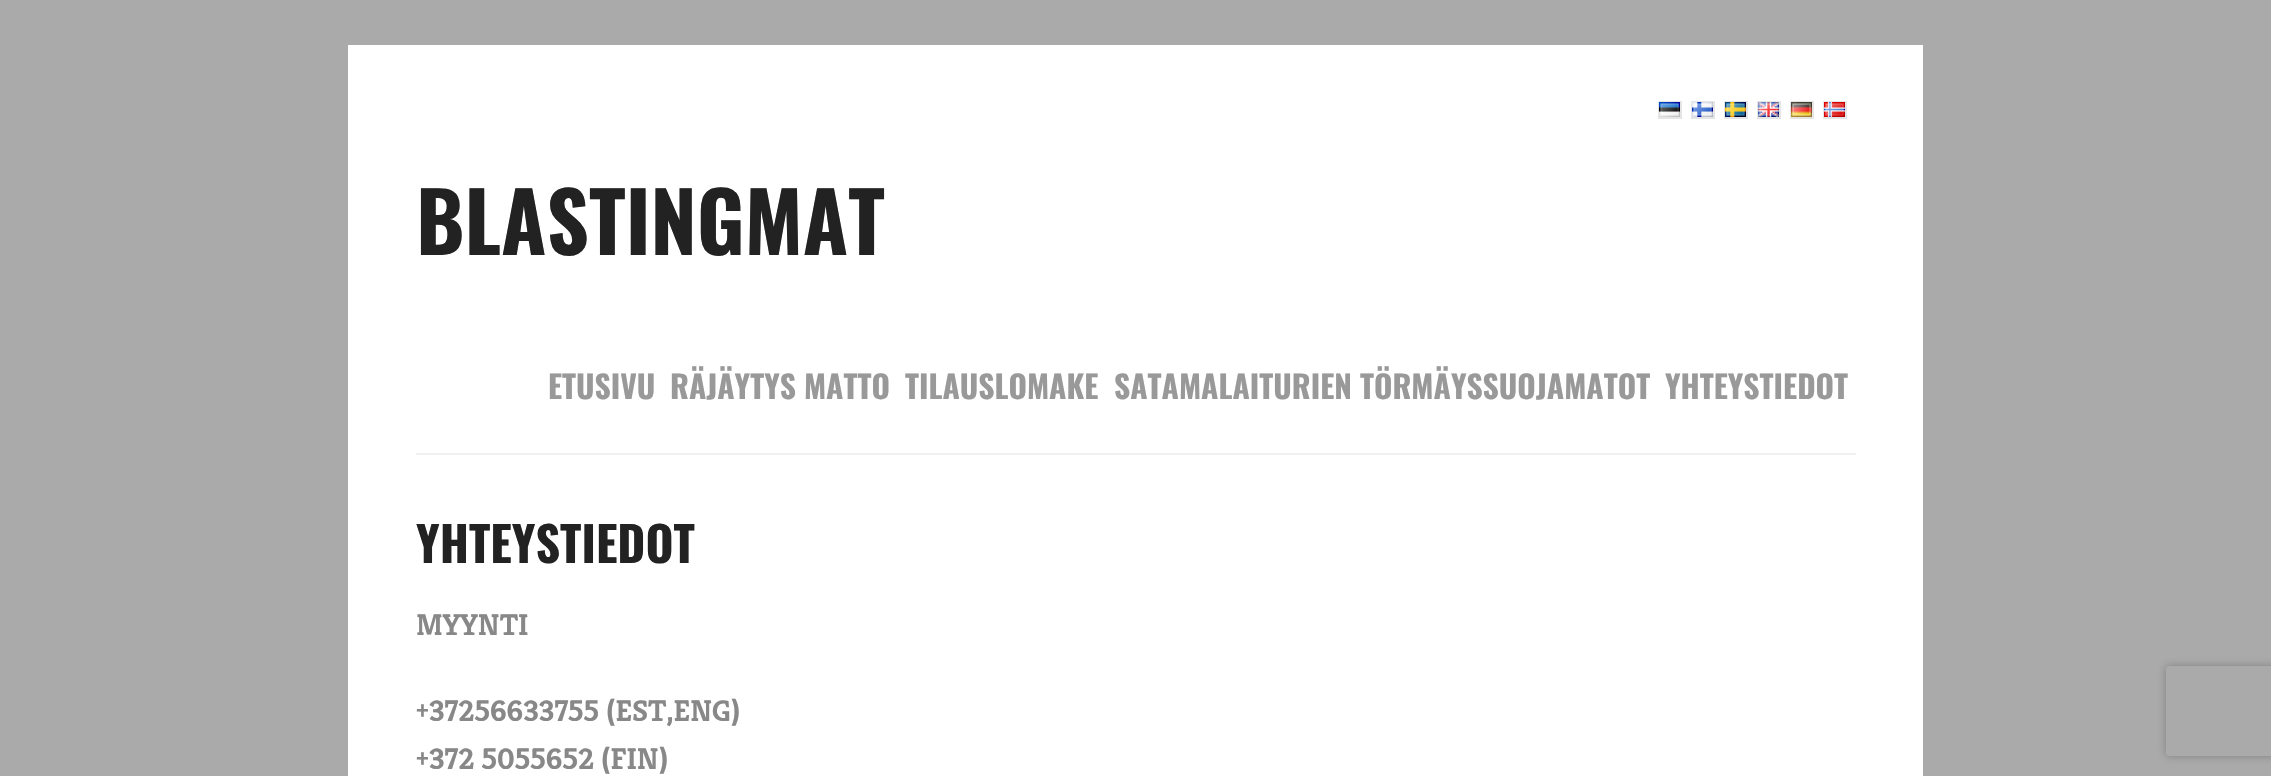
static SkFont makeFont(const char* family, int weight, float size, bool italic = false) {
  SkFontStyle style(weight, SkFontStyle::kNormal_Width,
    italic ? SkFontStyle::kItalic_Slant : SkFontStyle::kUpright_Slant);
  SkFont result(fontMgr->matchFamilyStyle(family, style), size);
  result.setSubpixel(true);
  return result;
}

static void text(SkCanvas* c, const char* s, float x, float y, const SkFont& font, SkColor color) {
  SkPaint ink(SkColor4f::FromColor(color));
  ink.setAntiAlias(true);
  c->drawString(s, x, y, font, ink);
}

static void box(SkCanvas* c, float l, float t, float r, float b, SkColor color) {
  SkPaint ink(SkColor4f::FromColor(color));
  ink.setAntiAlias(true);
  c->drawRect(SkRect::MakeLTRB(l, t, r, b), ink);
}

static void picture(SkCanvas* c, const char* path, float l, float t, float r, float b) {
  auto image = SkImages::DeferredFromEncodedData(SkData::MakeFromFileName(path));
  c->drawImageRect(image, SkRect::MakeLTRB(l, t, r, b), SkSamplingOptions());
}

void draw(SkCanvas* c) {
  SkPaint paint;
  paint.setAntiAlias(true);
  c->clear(0xffaaaaaa);
  box(c, 348, 45, 1923, 776, 0xffffffff);
  paint.setStyle(SkPaint::kStroke_Style);
  paint.setStrokeWidth(2);
  paint.setColor(0xffe5e5e5);
  c->drawRect(SkRect::MakeLTRB(1659, 102, 1681, 118), paint);
  picture(c, "img_01.png", 1659, 102, 1680, 117);
  c->drawRect(SkRect::MakeLTRB(1692, 102, 1714, 118), paint);
  picture(c, "img_02.png", 1692, 102, 1713, 117);
  c->drawRect(SkRect::MakeLTRB(1725, 102, 1747, 118), paint);
  picture(c, "img_03.png", 1725, 102, 1746, 117);
  c->drawRect(SkRect::MakeLTRB(1758, 102, 1780, 118), paint);
  picture(c, "img_04.png", 1758, 102, 1779, 117);
  c->drawRect(SkRect::MakeLTRB(1791, 102, 1813, 118), paint);
  picture(c, "img_05.png", 1791, 102, 1812, 117);
  c->drawRect(SkRect::MakeLTRB(1824, 102, 1846, 118), paint);
  picture(c, "img_06.png", 1824, 102, 1845, 117);
  box(c, 416, 453, 1856, 455, 0xfff0f0f0);
  SkFont face1 = makeFont("Oswald", 700, 82.5f);
  text(c, "BLASTINGMAT", 416, 255, face1, 0xff222222);
  SkFont face2 = makeFont("Oswald", 700, 31.5f);
  text(c, "ETUSIVU", 548, 399, face2, 0xff999999);
  text(c, "RÄJÄYTYS MATTO", 670, 399, face2, 0xff999999);
  text(c, "TILAUSLOMAKE", 905, 399, face2, 0xff999999);
  text(c, "SATAMALAITURIEN TÖRMÄYSSUOJAMATOT", 1114, 399, face2, 0xff999999);
  text(c, "YHTEYSTIEDOT", 1665, 399, face2, 0xff999999);
  SkFont face3 = makeFont("Oswald", 700, 48);
  text(c, "YHTEYSTIEDOT", 416, 563, face3, 0xff222222);
  SkFont face4 = makeFont("Kreon", 300, 30);
  text(c, "MYYNTI", 416, 635, face4, 0xff888888);
  text(c, "+37256633755 (EST,ENG)", 416, 721, face4, 0xff888888);
  text(c, "+372 5055652 (FIN)", 416, 769, face4, 0xff888888);
  c->save();
  c->clipPath(SkPathBuilder(SkPathFillType::kEvenOdd).moveTo(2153, 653).lineTo(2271, 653).lineTo(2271, 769).lineTo(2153, 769).close().moveTo(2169, 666).lineTo(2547, 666).cubicTo(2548.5f, 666, 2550, 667.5f, 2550, 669).lineTo(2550, 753).cubicTo(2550, 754.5f, 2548.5f, 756, 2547, 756).lineTo(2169, 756).cubicTo(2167.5f, 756, 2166, 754.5f, 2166, 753).lineTo(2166, 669).cubicTo(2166, 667.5f, 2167.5f, 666, 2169, 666).close().detach(), true);
  paint.setStyle(SkPaint::kFill_Style);
  paint.setColor(0xff808080);
  paint.setMaskFilter(SkMaskFilter::MakeBlur(kNormal_SkBlurStyle, 4));
  c->drawRoundRect(SkRect::MakeLTRB(2166, 666, 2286, 756), 3, 3, paint);
  paint.setMaskFilter(nullptr);
  c->restore();
}
